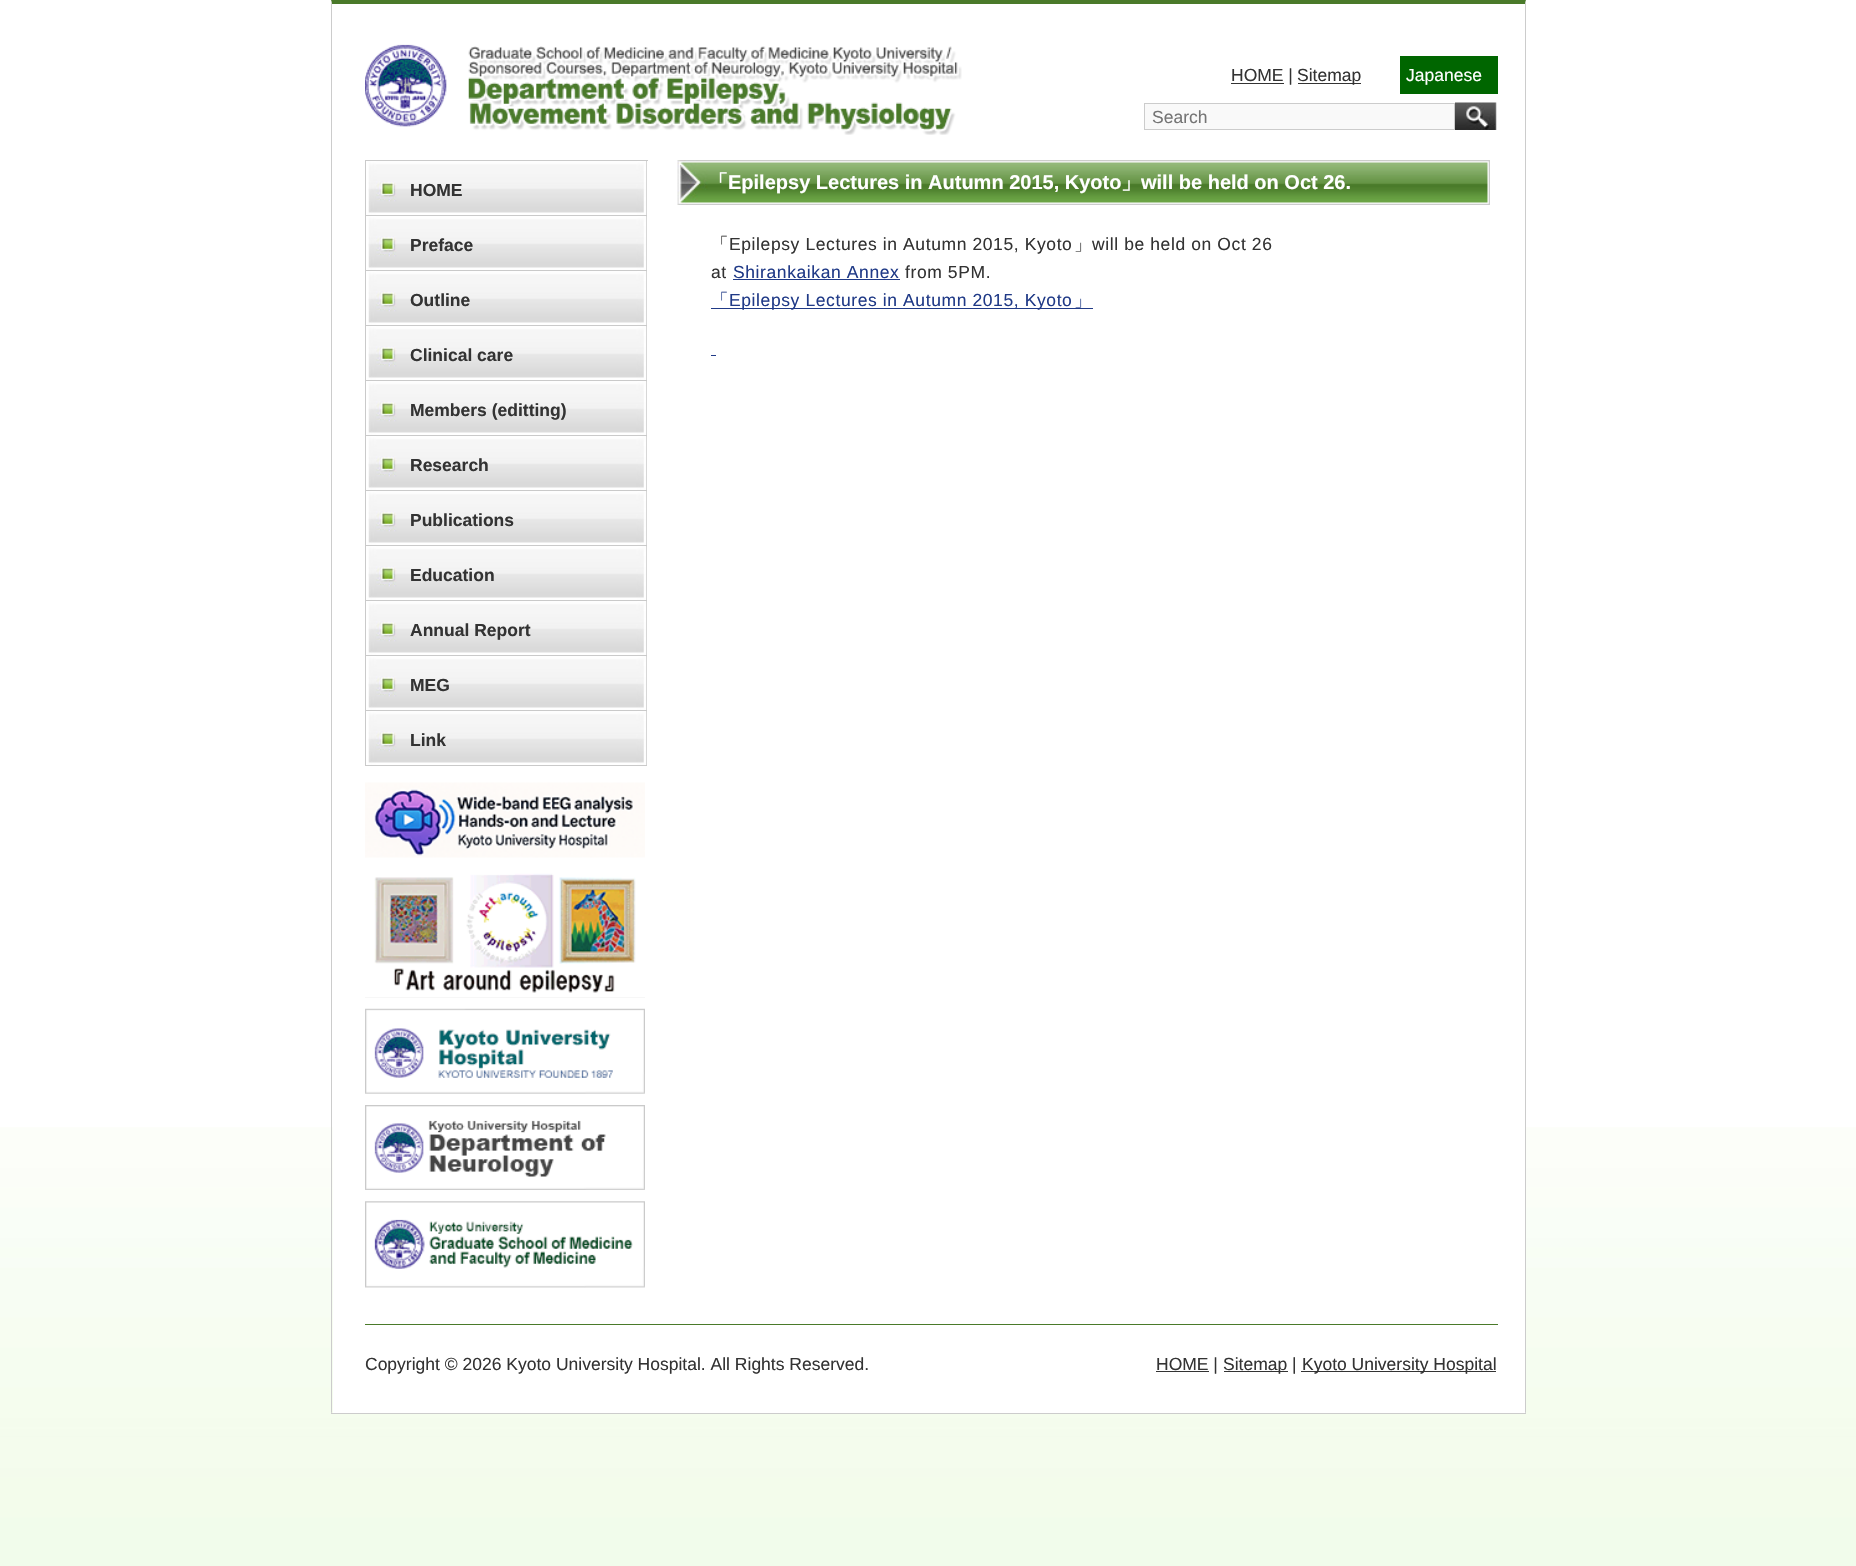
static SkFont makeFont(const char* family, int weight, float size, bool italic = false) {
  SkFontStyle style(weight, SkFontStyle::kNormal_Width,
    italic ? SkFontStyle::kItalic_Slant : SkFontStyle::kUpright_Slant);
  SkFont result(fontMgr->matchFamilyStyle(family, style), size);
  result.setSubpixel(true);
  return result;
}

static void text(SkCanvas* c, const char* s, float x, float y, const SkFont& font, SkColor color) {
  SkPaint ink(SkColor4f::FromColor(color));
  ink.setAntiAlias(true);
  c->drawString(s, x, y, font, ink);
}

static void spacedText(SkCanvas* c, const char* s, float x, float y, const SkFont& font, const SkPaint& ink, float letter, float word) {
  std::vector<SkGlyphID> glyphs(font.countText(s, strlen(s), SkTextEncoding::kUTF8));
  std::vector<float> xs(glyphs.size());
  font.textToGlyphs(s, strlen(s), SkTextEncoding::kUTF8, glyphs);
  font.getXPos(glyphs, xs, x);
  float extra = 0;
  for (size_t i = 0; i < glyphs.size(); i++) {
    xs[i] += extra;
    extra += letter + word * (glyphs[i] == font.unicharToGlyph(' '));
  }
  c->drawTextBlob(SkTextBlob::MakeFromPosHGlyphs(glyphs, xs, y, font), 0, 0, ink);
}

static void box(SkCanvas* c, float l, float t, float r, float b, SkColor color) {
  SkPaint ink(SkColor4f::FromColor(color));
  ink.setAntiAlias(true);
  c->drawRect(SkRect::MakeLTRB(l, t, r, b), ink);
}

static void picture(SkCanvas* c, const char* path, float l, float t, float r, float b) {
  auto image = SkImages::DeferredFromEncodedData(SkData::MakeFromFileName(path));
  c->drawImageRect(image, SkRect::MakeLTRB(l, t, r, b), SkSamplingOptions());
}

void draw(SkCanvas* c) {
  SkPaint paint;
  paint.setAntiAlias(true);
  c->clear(0xffffffff);
  picture(c, "img_10.png", 0, 1127, 1856, 1566);
  box(c, 333, 1127, 1525, 1413, 0xffffffff);
  paint.setColor(0xff4a7a2a);
  c->drawPath(SkPathBuilder().moveTo(331, 0).lineTo(1526, 0).lineTo(1525, 4).lineTo(332, 4).close().detach(), paint);
  paint.setColor(0xffcccccc);
  c->drawPath(SkPathBuilder().moveTo(1526, 0).lineTo(1526, 1414).lineTo(1525, 1412).lineTo(1525, 4).close().detach(), paint);
  box(c, 331, 1413, 1526, 1414, 0xffcccccc);
  c->drawPath(SkPathBuilder().moveTo(331, 1414).lineTo(331, 0).lineTo(332, 4).lineTo(332, 1412).close().detach(), paint);
  picture(c, "img_01.png", 365, 44, 962, 135);
  box(c, 1231, 83, 1284, 84, 0xff333333);
  SkFont face1 = makeFont("Liberation Sans", 400, 17.5f);
  text(c, "HOME |", 1231, 81, face1, 0xff333333);
  box(c, 1298, 83, 1361, 84, 0xff333333);
  text(c, "Sitemap", 1297, 81, face1, 0xff333333);
  box(c, 1400, 56, 1498, 94, 0xff006600);
  text(c, "Japanese", 1406, 81, face1, 0xffffffff);
  paint.setColor(0xfff9f9f9);
  c->drawRect(SkRect::MakeLTRB(1144.5f, 103.5f, 1454.5f, 129.5f), paint);
  paint.setStyle(SkPaint::kStroke_Style);
  paint.setStrokeWidth(1);
  paint.setColor(0xffcccccc);
  c->drawRect(SkRect::MakeLTRB(1144.5f, 103.5f, 1454.5f, 129.5f), paint);
  text(c, "Search", 1152, 123, face1, 0xff757575);
  picture(c, "img_02.png", 1455, 102, 1497, 130);
  box(c, 365, 160, 648, 161, 0xffcacaca);
  box(c, 646, 160, 647, 766, 0xffcacaca);
  box(c, 365, 160, 366, 766, 0xffcacaca);
  picture(c, "img_03.png", 368, 161, 647, 215);
  box(c, 366, 215, 646, 216, 0xffcacaca);
  SkFont face2 = makeFont("Liberation Sans", 700, 17.5f);
  text(c, "HOME", 410, 196, face2, 0xff333333);
  picture(c, "img_03.png", 368, 216, 647, 270);
  box(c, 366, 270, 646, 271, 0xffcacaca);
  text(c, "Preface", 410, 251, face2, 0xff333333);
  picture(c, "img_03.png", 368, 271, 647, 325);
  box(c, 366, 325, 646, 326, 0xffcacaca);
  text(c, "Outline", 410, 306, face2, 0xff333333);
  picture(c, "img_03.png", 368, 326, 647, 380);
  box(c, 366, 380, 646, 381, 0xffcacaca);
  text(c, "Clinical care", 410, 361, face2, 0xff333333);
  picture(c, "img_03.png", 368, 381, 647, 435);
  box(c, 366, 435, 646, 436, 0xffcacaca);
  text(c, "Members (editting)", 410, 416, face2, 0xff333333);
  picture(c, "img_03.png", 368, 436, 647, 490);
  box(c, 366, 490, 646, 491, 0xffcacaca);
  text(c, "Research", 410, 471, face2, 0xff333333);
  picture(c, "img_03.png", 368, 491, 647, 545);
  box(c, 366, 545, 646, 546, 0xffcacaca);
  text(c, "Publications", 410, 526, face2, 0xff333333);
  picture(c, "img_03.png", 368, 546, 647, 600);
  box(c, 366, 600, 646, 601, 0xffcacaca);
  text(c, "Education", 410, 581, face2, 0xff333333);
  picture(c, "img_03.png", 368, 601, 647, 655);
  box(c, 366, 655, 646, 656, 0xffcacaca);
  text(c, "Annual Report", 410, 636, face2, 0xff333333);
  picture(c, "img_03.png", 368, 656, 647, 710);
  box(c, 366, 710, 646, 711, 0xffcacaca);
  text(c, "MEG", 410, 691, face2, 0xff333333);
  picture(c, "img_03.png", 368, 711, 647, 765);
  box(c, 366, 765, 646, 766, 0xffcacaca);
  text(c, "Link", 410, 746, face2, 0xff333333);
  picture(c, "img_04.png", 365, 782, 645, 858);
  box(c, 365, 997, 645, 998, 0xffeeeeee);
  picture(c, "img_05.png", 365, 869, 645, 998);
  picture(c, "img_06.png", 365, 1008, 645, 1094);
  picture(c, "img_07.png", 365, 1105, 645, 1190);
  picture(c, "img_08.png", 365, 1201, 645, 1288);
  picture(c, "img_09.png", 677, 160, 1490, 205);
  SkFont face3 = makeFont("WenQuanYi Zen Hei", 700, 20);
  text(c, "「", 708, 189, face3, 0xffffffff);
  SkFont face4 = makeFont("Liberation Sans", 700, 20);
  text(c, "Epilepsy Lectures in Autumn 2015, Kyoto", 728, 189, face4, 0xffffffff);
  text(c, "」", 1121, 189, face3, 0xffffffff);
  text(c, "will be held on Oct 26.", 1141, 189, face4, 0xffffffff);
  SkFont face5 = makeFont("WenQuanYi Zen Hei", 500, 17.5f);
  paint.setStyle(SkPaint::kFill_Style);
  paint.setColor(0xff333333);
  spacedText(c, "「", 711, 250, face5, paint, 0.6f, 0);
  spacedText(c, "Epilepsy Lectures in Autumn 2015, Kyoto", 729, 250, face1, paint, 0.6f, 0);
  spacedText(c, "」", 1074, 250, face5, paint, 0.6f, 0);
  spacedText(c, "will be held on Oct 26", 1092, 250, face1, paint, 0.6f, 0);
  spacedText(c, "at", 711, 278, face1, paint, 0.6f, 0);
  paint.setColor(0xff203a87);
  spacedText(c, "Shirankaikan Annex", 733, 278, face1, paint, 0.6f, 0);
  box(c, 733, 279, 900, 280, 0xff203a87);
  paint.setColor(0xff333333);
  spacedText(c, "from 5PM.", 905, 278, face1, paint, 0.6f, 0);
  paint.setColor(0xff203a87);
  spacedText(c, "「", 711, 306, face5, paint, 0.6f, 0);
  box(c, 711, 308, 1093, 309, 0xff203a87);
  spacedText(c, "Epilepsy Lectures in Autumn 2015, Kyoto", 729, 306, face1, paint, 0.6f, 0);
  spacedText(c, "」", 1074, 306, face5, paint, 0.6f, 0);
  box(c, 711, 355, 716, 356, 0xff203a87);
  box(c, 365, 1324, 1498, 1325, 0xff4a7a2a);
  text(c, "Copyright © 2026 Kyoto University Hospital. All Rights Reserved.", 365, 1370, face1, 0xff333333);
  box(c, 1156, 1371, 1209, 1372, 0xff333333);
  text(c, "HOME |", 1156, 1370, face1, 0xff333333);
  box(c, 1224, 1371, 1288, 1372, 0xff333333);
  text(c, "Sitemap |", 1223, 1370, face1, 0xff333333);
  box(c, 1301, 1371, 1496, 1372, 0xff333333);
  text(c, "Kyoto University Hospital", 1302, 1370, face1, 0xff333333);
}
